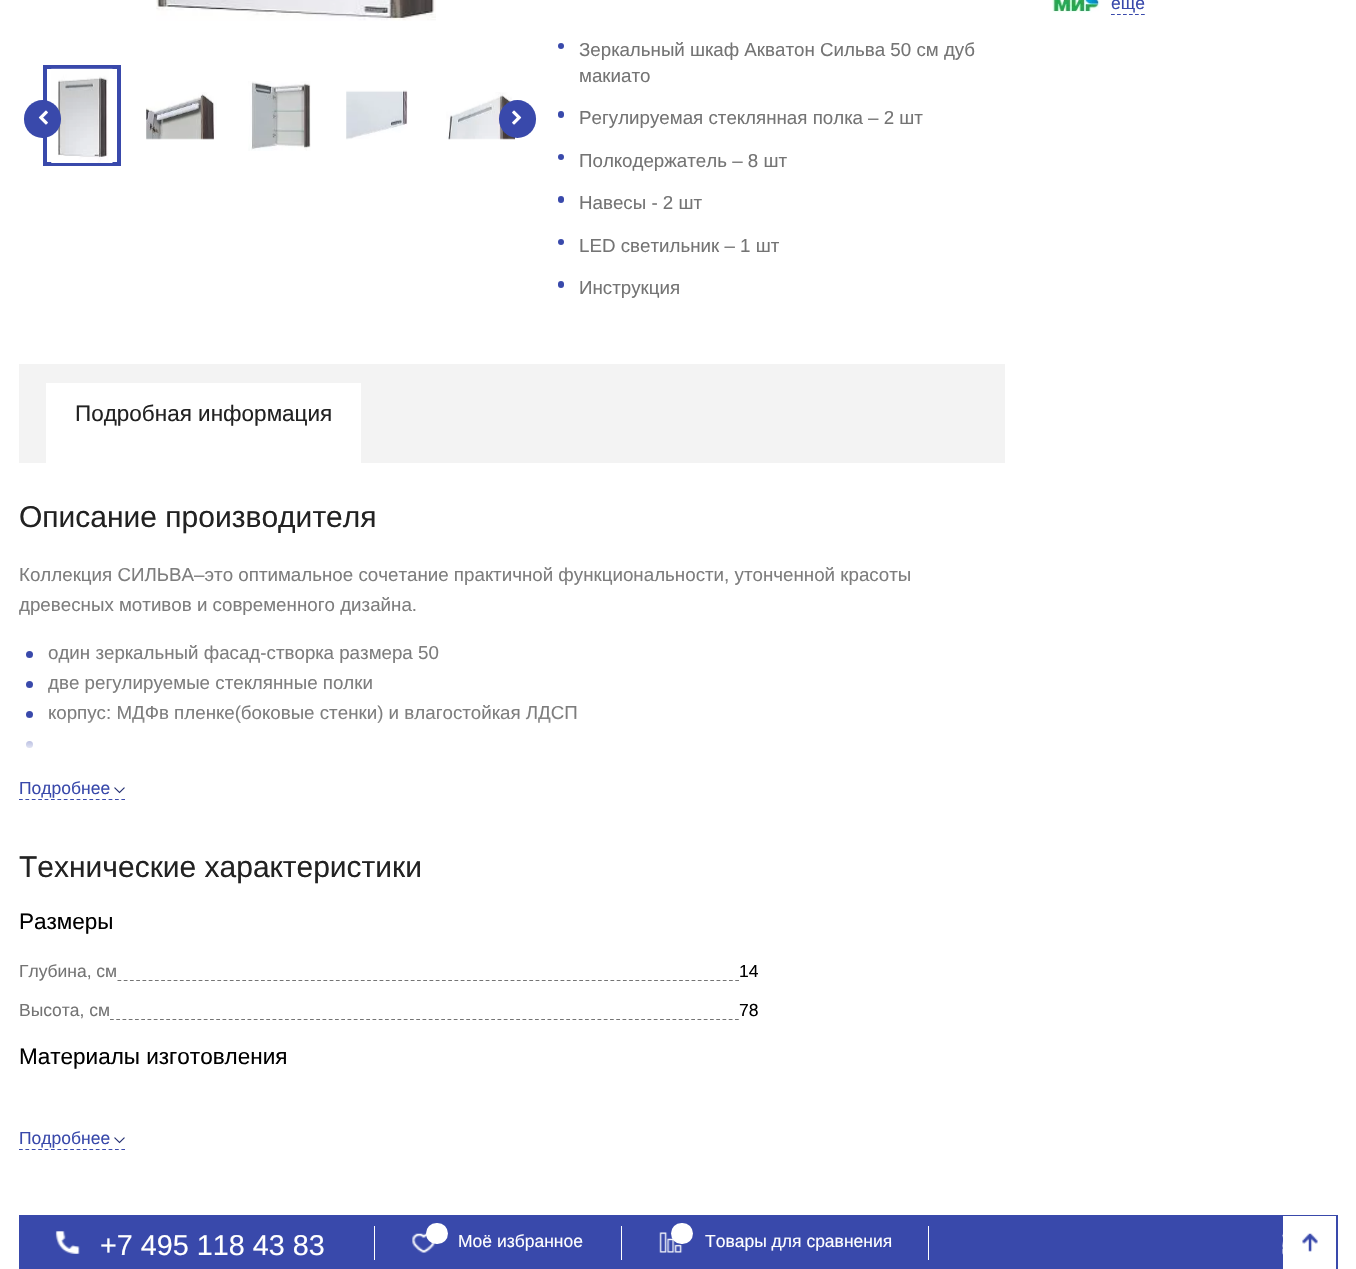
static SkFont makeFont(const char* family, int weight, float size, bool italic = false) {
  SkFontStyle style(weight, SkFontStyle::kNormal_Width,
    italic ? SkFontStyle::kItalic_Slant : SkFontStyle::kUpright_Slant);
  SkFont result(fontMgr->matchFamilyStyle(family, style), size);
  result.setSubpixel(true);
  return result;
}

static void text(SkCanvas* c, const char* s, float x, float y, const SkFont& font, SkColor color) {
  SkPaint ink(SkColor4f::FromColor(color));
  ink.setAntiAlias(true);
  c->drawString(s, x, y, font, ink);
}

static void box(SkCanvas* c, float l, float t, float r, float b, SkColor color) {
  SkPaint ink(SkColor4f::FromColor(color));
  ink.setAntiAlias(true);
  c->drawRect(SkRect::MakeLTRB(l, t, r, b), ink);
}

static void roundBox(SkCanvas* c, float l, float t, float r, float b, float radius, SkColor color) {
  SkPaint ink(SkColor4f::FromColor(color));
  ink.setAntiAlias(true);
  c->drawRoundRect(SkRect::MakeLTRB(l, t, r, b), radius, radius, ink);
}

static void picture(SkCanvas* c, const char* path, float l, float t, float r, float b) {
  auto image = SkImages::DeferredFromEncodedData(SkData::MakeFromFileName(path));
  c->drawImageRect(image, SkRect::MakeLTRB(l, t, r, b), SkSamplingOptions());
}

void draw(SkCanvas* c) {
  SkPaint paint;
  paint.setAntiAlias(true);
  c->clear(0xffffffff);
  picture(c, "img_01.png", 156, 0, 436, 21);
  paint.setStyle(SkPaint::kStroke_Style);
  paint.setStrokeWidth(4);
  paint.setColor(0xff3949ab);
  c->drawRect(SkRect::MakeLTRB(45, 67, 119, 164), paint);
  picture(c, "img_03.png", 51, 68, 113, 163);
  roundBox(c, 24, 100, 61, 138, 18.5f, 0xff3949ab);
  picture(c, "img_02.png", 38, 110, 48, 125);
  picture(c, "img_04.png", 146, 92, 217, 140);
  picture(c, "img_05.png", 248, 81, 311, 151);
  picture(c, "img_06.png", 346, 90, 408, 140);
  picture(c, "img_07.png", 446, 92, 517, 140);
  roundBox(c, 499, 100, 536, 138, 18.5f, 0xff3949ab);
  picture(c, "img_08.png", 512, 110, 522, 125);
  picture(c, "img_09.png", 1052, 0, 1100, 13);
  paint.setStrokeWidth(1.2f);
  paint.setPathEffect(SkDashPathEffect::Make({{3.75f, 2.25f}}, 0));
  c->drawPath(SkPathBuilder().moveTo(1111, 14.5f).lineTo(1145, 14.5f).detach(), paint);
  paint.setPathEffect(nullptr);
  SkFont face1 = makeFont("Liberation Sans", 400, 17.5f);
  text(c, "еще", 1111, 9, face1, 0xff3949ab);
  paint.setStyle(SkPaint::kFill_Style);
  c->drawCircle(561, 46, 3, paint);
  SkFont face2 = makeFont("Liberation Sans", 400, 18.75f);
  text(c, "Зеркальный шкаф Акватон Сильва 50 см дуб", 579, 56, face2, 0xff747474);
  text(c, "макиато", 579, 82, face2, 0xff747474);
  roundBox(c, 558, 111, 564, 118, 3, 0xff3949ab);
  text(c, "Регулируемая стеклянная полка – 2 шт", 579, 124, face2, 0xff747474);
  c->drawCircle(561, 157, 3, paint);
  text(c, "Полкодержатель – 8 шт", 579, 167, face2, 0xff747474);
  roundBox(c, 558, 196, 564, 203, 3, 0xff3949ab);
  text(c, "Навесы - 2 шт", 579, 209, face2, 0xff747474);
  c->drawCircle(561, 242, 3, paint);
  text(c, "LED светильник – 1 шт", 579, 252, face2, 0xff747474);
  roundBox(c, 558, 281, 564, 288, 3, 0xff3949ab);
  text(c, "Инструкция", 579, 294, face2, 0xff747474);
  box(c, 19, 364, 1005, 463, 0xfff3f3f3);
  box(c, 46, 383, 361, 463, 0xffffffff);
  SkFont face3 = makeFont("Liberation Sans", 400, 22.5f);
  text(c, "Подробная информация", 75, 421, face3, 0xff222222);
  SkFont face4 = makeFont("Liberation Sans", 400, 30);
  text(c, "Описание производителя", 19, 527, face4, 0xff222222);
  text(c, "Коллекция СИЛЬВА–это оптимальное сочетание практичной функциональности, утонченной красоты", 19, 581, face2, 0xff7d7d7d);
  c->save();
  c->clipRect(SkRect::MakeLTRB(19, 500, 1005, 754));
  text(c, "древесных мотивов и современного дизайна.", 19, 611, face2, 0xff7d7d7d);
  c->restore();
  c->drawCircle(29.5f, 654.5f, 3.5f, paint);
  text(c, "один зеркальный фасад-створка размера 50", 48, 659, face2, 0xff7d7d7d);
  c->drawCircle(29.5f, 684.5f, 3.5f, paint);
  text(c, "две регулируемые стеклянные полки", 48, 689, face2, 0xff7d7d7d);
  c->drawCircle(29.5f, 714.5f, 3.5f, paint);
  text(c, "корпус: МДФв пленке(боковые стенки) и влагостойкая ЛДСП", 48, 719, face2, 0xff7d7d7d);
  c->drawCircle(29.5f, 744.5f, 3.5f, paint);
  {
    const SkColor colors[] = {0x00ffffff, 0xffffffff};
    const float stops[] = {0, 1};
    const SkPoint ends[] = {{512, 716}, {512, 754}};
    paint.setShader(SkGradientShader::MakeLinear(ends, colors, stops, 2, SkTileMode::kClamp));
    paint.setAlpha(255);
  }
  c->drawRect(SkRect::MakeLTRB(26, 717, 576, 748), paint);
  paint.setStyle(SkPaint::kStroke_Style);
  paint.setShader(nullptr);
  paint.setColor(0xff3949ab);
  paint.setPathEffect(SkDashPathEffect::Make({{3.75f, 2.65f}}, 0));
  c->drawPath(SkPathBuilder().moveTo(19, 799.5f).lineTo(125, 799.5f).detach(), paint);
  paint.setPathEffect(nullptr);
  text(c, "Подробнее", 19, 794, face1, 0xff3949ab);
  SkFont face5 = makeFont("FreeSerif", 700, 14);
  text(c, "⌵", 114, 793, face5, 0xff263172);
  text(c, "Технические характеристики", 19, 877, face4, 0xff222222);
  text(c, "Размеры", 19, 929, face3, 0xff000000);
  text(c, "Глубина, см", 19, 977, face1, 0xff747474);
  text(c, "14", 739, 977, face1, 0xff000000);
  paint.setColor(0xff747474);
  paint.setPathEffect(SkDashPathEffect::Make({{3.75f, 2.49f}}, 0));
  c->drawPath(SkPathBuilder().moveTo(117.5f, 980.5f).lineTo(739, 980.5f).detach(), paint);
  paint.setPathEffect(nullptr);
  text(c, "Высота, см", 19, 1016, face1, 0xff747474);
  text(c, "78", 739, 1016, face1, 0xff000000);
  paint.setPathEffect(SkDashPathEffect::Make({{3.75f, 2.5f}}, 0));
  c->drawPath(SkPathBuilder().moveTo(110, 1019.5f).lineTo(739, 1019.5f).detach(), paint);
  paint.setPathEffect(nullptr);
  text(c, "Материалы изготовления", 19, 1064, face3, 0xff000000);
  paint.setStyle(SkPaint::kFill_Style);
  {
    const SkColor colors[] = {0x00ffffff, 0xffffffff};
    const float stops[] = {0, 1};
    const SkPoint ends[] = {{389, 1066}, {389, 1104}};
    paint.setShader(SkGradientShader::MakeLinear(ends, colors, stops, 2, SkTileMode::kClamp));
    paint.setAlpha(255);
  }
  c->drawRect(SkRect::MakeLTRB(74, 1067, 77, 1069), paint);
  paint.setStyle(SkPaint::kStroke_Style);
  paint.setShader(nullptr);
  paint.setColor(0xff3949ab);
  paint.setPathEffect(SkDashPathEffect::Make({{3.75f, 2.65f}}, 0));
  c->drawPath(SkPathBuilder().moveTo(19, 1149.5f).lineTo(125, 1149.5f).detach(), paint);
  paint.setPathEffect(nullptr);
  text(c, "Подробнее", 19, 1144, face1, 0xff3949ab);
  text(c, "⌵", 114, 1143, face5, 0xff263172);
  box(c, 19, 1215, 1338, 1269, 0xff3949ab);
  picture(c, "img_10.png", 55, 1231, 80, 1254);
  SkFont face6 = makeFont("Liberation Sans", 400, 28.75f);
  text(c, "+7 495 118 43 83", 100, 1255, face6, 0xffffffff);
  box(c, 621, 1226, 622, 1260, 0xffffffff);
  box(c, 374, 1226, 375, 1260, 0xffffffff);
  picture(c, "img_11.png", 412, 1233, 436, 1253);
  roundBox(c, 426, 1223, 448, 1244, 10.5f, 0xffffffff);
  text(c, "Моё избранное", 458, 1247, face1, 0xffffffff);
  box(c, 928, 1226, 929, 1260, 0xffffffff);
  picture(c, "img_12.png", 659, 1232, 683, 1253);
  roundBox(c, 671, 1223, 693, 1244, 10.5f, 0xffffffff);
  text(c, "Товары для сравнения", 705, 1247, face1, 0xffffffff);
  box(c, 1283, 1216, 1336, 1269, 0xffffffff);
  picture(c, "img_13.png", 1282, 1233, 1318, 1255);
}
